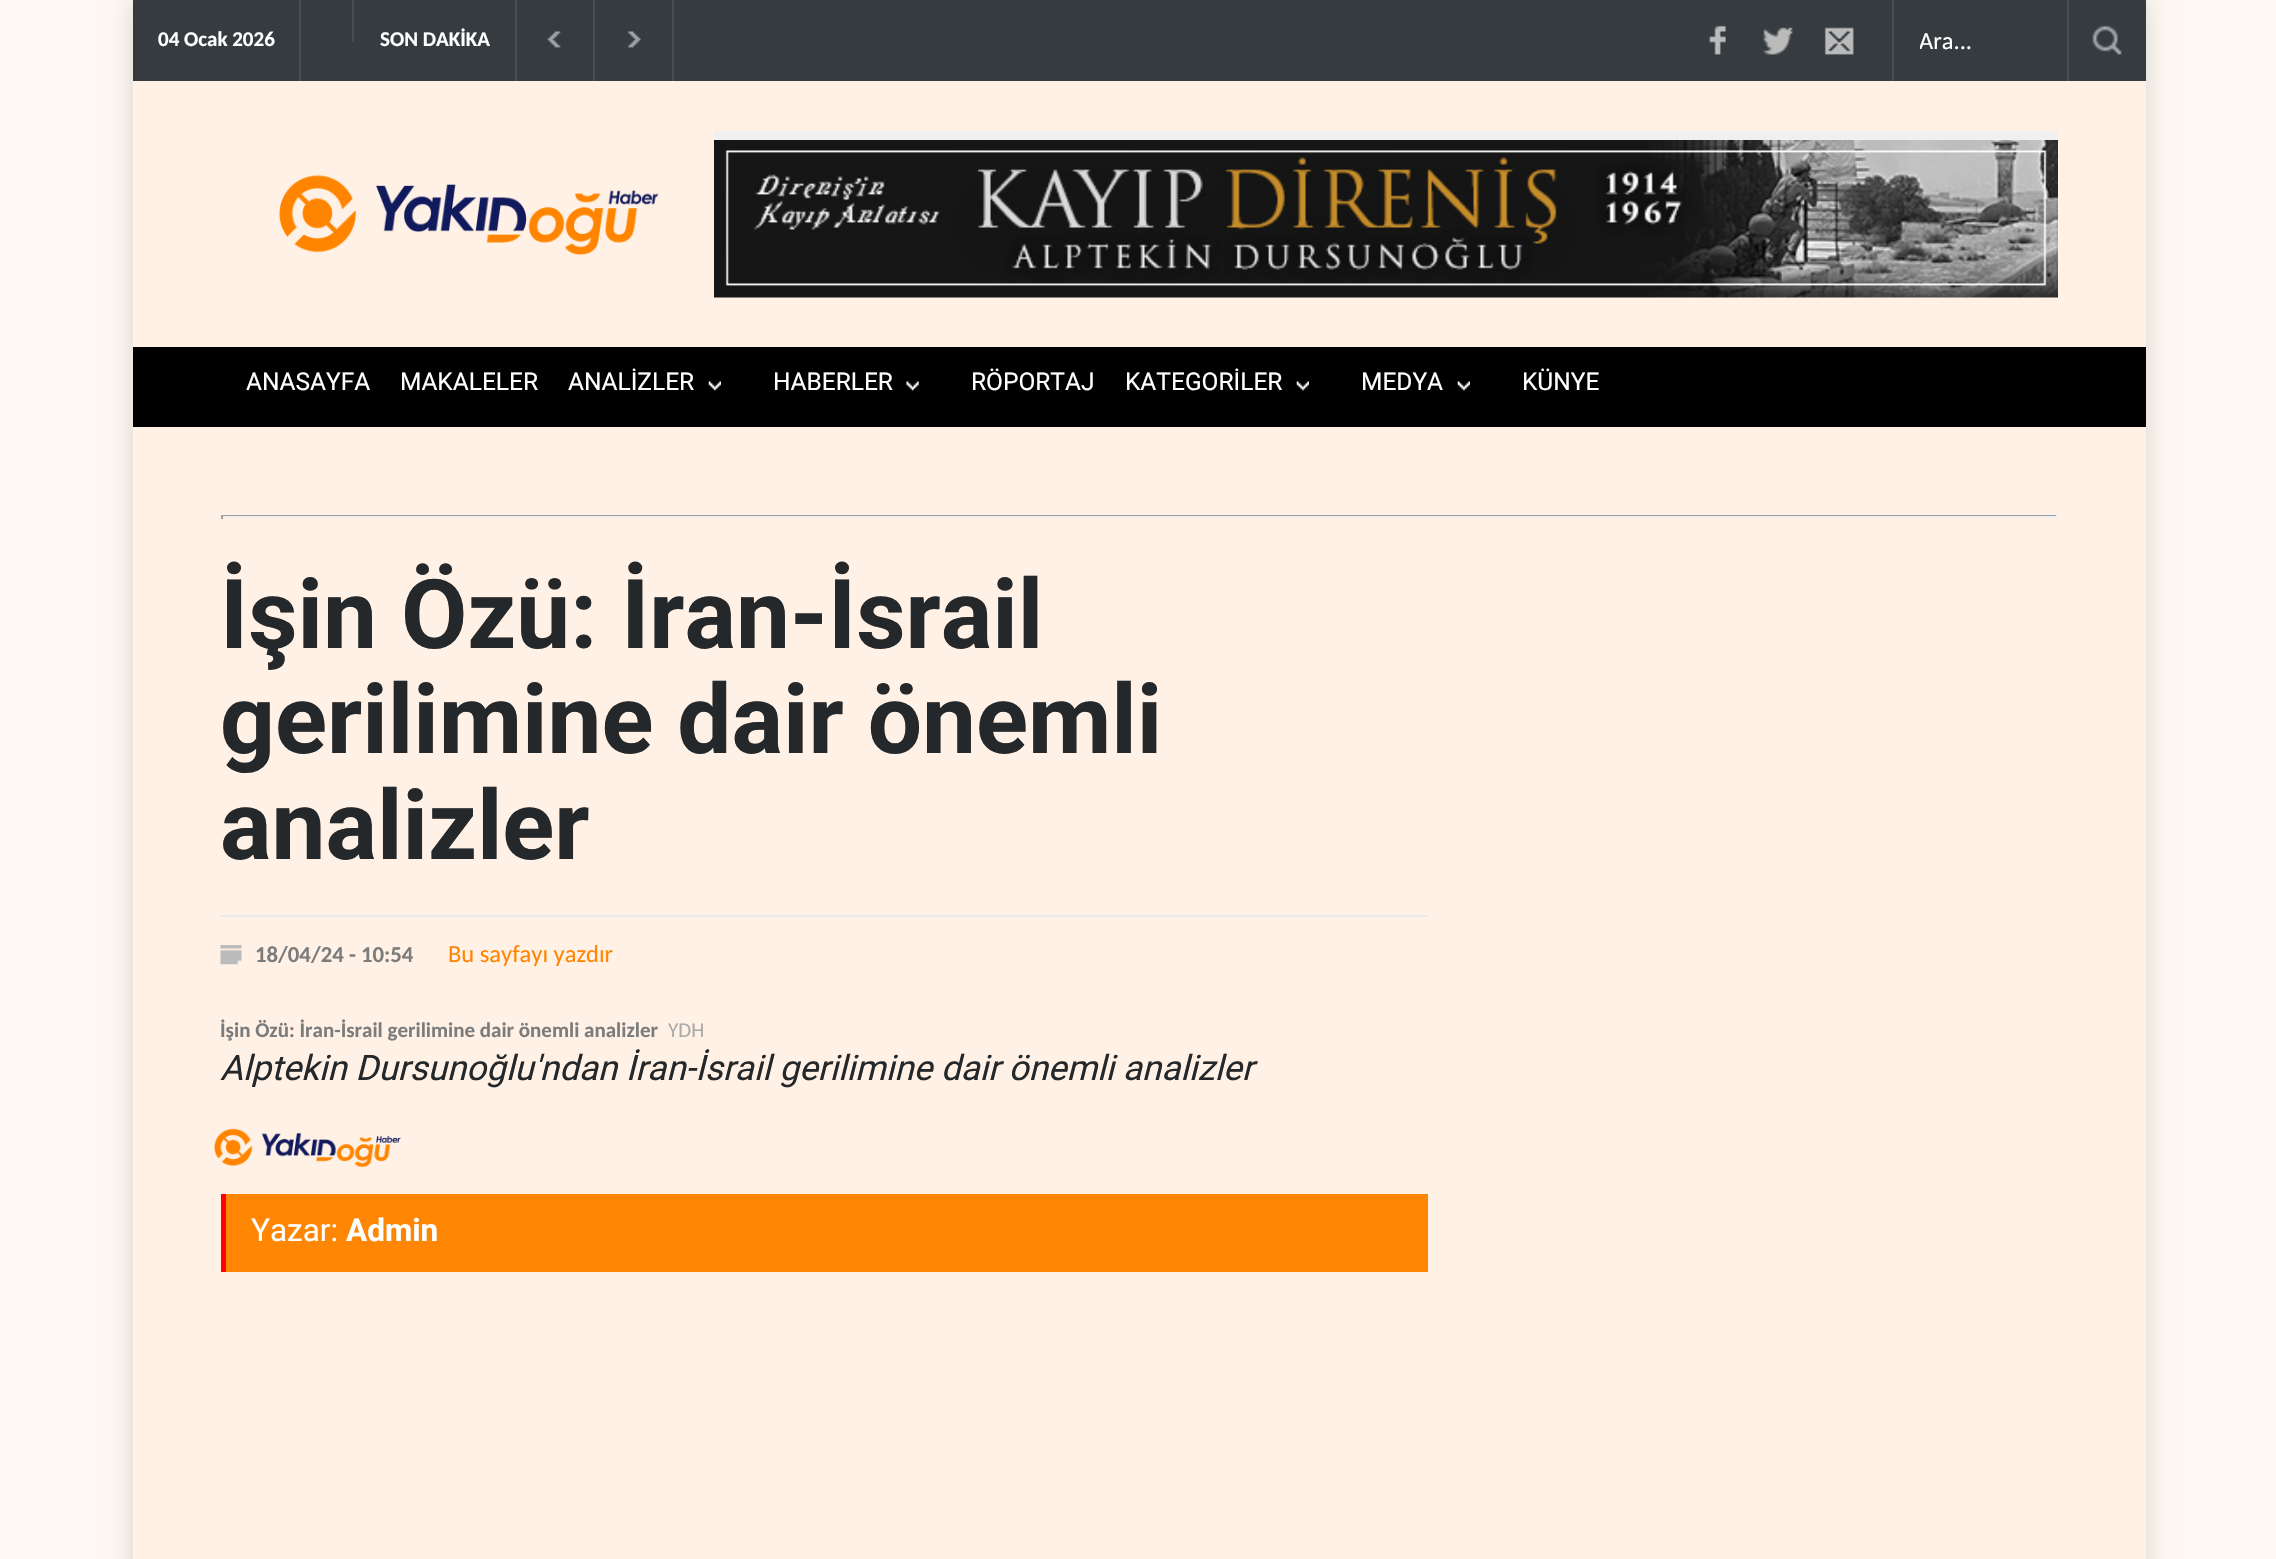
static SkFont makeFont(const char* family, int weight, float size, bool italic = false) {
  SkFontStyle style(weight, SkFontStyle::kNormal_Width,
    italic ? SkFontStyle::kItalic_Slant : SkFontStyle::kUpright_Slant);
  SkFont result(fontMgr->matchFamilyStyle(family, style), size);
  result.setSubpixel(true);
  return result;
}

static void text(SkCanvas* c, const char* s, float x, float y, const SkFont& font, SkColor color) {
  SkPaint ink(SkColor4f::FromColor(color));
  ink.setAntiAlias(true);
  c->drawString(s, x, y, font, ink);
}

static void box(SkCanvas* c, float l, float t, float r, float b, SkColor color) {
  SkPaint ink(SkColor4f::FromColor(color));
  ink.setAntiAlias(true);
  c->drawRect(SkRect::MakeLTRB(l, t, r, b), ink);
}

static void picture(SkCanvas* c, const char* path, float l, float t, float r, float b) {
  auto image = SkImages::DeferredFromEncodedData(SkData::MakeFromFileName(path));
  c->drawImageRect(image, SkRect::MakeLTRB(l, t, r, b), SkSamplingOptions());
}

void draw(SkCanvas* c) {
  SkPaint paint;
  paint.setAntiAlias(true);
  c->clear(0xfffff9f3);
  paint.setColor(0x26000000);
  paint.setMaskFilter(SkMaskFilter::MakeBlur(kNormal_SkBlurStyle, 13));
  c->drawRect(SkRect::MakeLTRB(133, 0, 2146, 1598), paint);
  paint.setMaskFilter(nullptr);
  box(c, 133, 81, 2146, 1559, 0xfffff1e5);
  box(c, 133, 0, 2146, 81, 0xff363b40);
  box(c, 299, 0, 301, 81, 0xff464d53);
  SkFont face1 = makeFont("Carlito", 700, 21);
  text(c, "04 Ocak 2026", 158, 46, face1, 0xffffffff);
  box(c, 352, 0, 354, 42, 0xff464d53);
  box(c, 515, 0, 517, 81, 0xff464d53);
  text(c, "SON DAKİKA", 380, 46, face1, 0xffffffff);
  box(c, 593, 0, 595, 81, 0xff464d53);
  picture(c, "img_01.png", 547, 31, 561, 48);
  box(c, 672, 0, 674, 81, 0xff464d53);
  picture(c, "img_02.png", 627, 31, 641, 48);
  picture(c, "img_03.png", 1709, 25, 1726, 55);
  picture(c, "img_04.png", 1763, 27, 1793, 55);
  picture(c, "img_05.png", 1824, 27, 1854, 55);
  box(c, 1892, 0, 1894, 81, 0xff464d53);
  box(c, 2067, 0, 2069, 81, 0xff464d53);
  c->save();
  c->clipRect(SkRect::MakeLTRB(1920, 26, 2042, 56));
  SkFont face2 = makeFont("Carlito", 400, 24.5f);
  text(c, "Ara...", 1919, 49, face2, 0xffffffff);
  c->restore();
  picture(c, "img_06.png", 2092, 25, 2122, 55);
  picture(c, "img_07.png", 279, 175, 659, 256);
  box(c, 714, 131, 2058, 140, 0xfff0f0f0);
  picture(c, "img_08.png", 714, 140, 2058, 298);
  box(c, 133, 347, 2146, 427, 0xff000000);
  SkFont face3 = makeFont("Roboto", 400, 24.5f);
  text(c, "ANASAYFA", 246, 390, face3, 0xffffffff);
  text(c, "MAKALELER", 400, 390, face3, 0xffffffff);
  picture(c, "img_09.png", 708, 381, 721, 391);
  text(c, "ANALİZLER", 568, 390, face3, 0xffffffff);
  picture(c, "img_10.png", 906, 381, 919, 391);
  text(c, "HABERLER", 773, 390, face3, 0xffffffff);
  text(c, "RÖPORTAJ", 971, 390, face3, 0xffffffff);
  picture(c, "img_11.png", 1296, 381, 1309, 391);
  text(c, "KATEGORİLER", 1125, 390, face3, 0xffffffff);
  picture(c, "img_09.png", 1457, 381, 1470, 391);
  text(c, "MEDYA", 1361, 390, face3, 0xffffffff);
  text(c, "KÜNYE", 1522, 390, face3, 0xffffffff);
  box(c, 221, 515, 2058, 516, 0xff9f9f9f);
  box(c, 2056, 515, 2058, 519, 0xffeeeeee);
  box(c, 221, 516, 2058, 518, 0xffeeeeee);
  box(c, 221, 515, 223, 519, 0xff9f9f9f);
  SkFont face4 = makeFont("Roboto", 700, 96.25f);
  text(c, "İşin Özü: İran-İsrail", 220, 648, face4, 0xff25282a);
  text(c, "gerilimine dair önemli", 220, 753, face4, 0xff25282a);
  text(c, "analizler", 220, 859, face4, 0xff25282a);
  box(c, 221, 915, 1428, 917, 0xffe9e9e9);
  picture(c, "img_12.png", 220, 945, 242, 965);
  SkFont face5 = makeFont("Carlito", 700, 22.75f);
  text(c, "18/04/24 - 10:54", 255, 962, face5, 0xff7c7c7c);
  text(c, "Bu sayfayı yazdır", 448, 962, face2, 0xffff8602);
  text(c, "İşin Özü: İran-İsrail gerilimine dair önemli analizler", 220, 1037, face1, 0xff7c7c7c);
  SkFont face6 = makeFont("Carlito", 400, 21);
  text(c, "YDH", 668, 1037, face6, 0xffababab);
  SkFont face7 = makeFont("Roboto", 400, 35, true);
  text(c, "Alptekin Dursunoğlu'ndan İran-İsrail gerilimine dair önemli analizler", 220, 1080, face7, 0xff25282a);
  picture(c, "img_13.png", 213, 1128, 401, 1168);
  box(c, 226, 1194, 1428, 1272, 0xffff8602);
  box(c, 221, 1194, 226, 1272, 0xffff000a);
  SkFont face8 = makeFont("Roboto", 400, 31.5f);
  text(c, "Yazar:", 251, 1241, face8, 0xffffffff);
  SkFont face9 = makeFont("Roboto", 700, 31.5f);
  text(c, "Admin", 346, 1241, face9, 0xffffffff);
}
